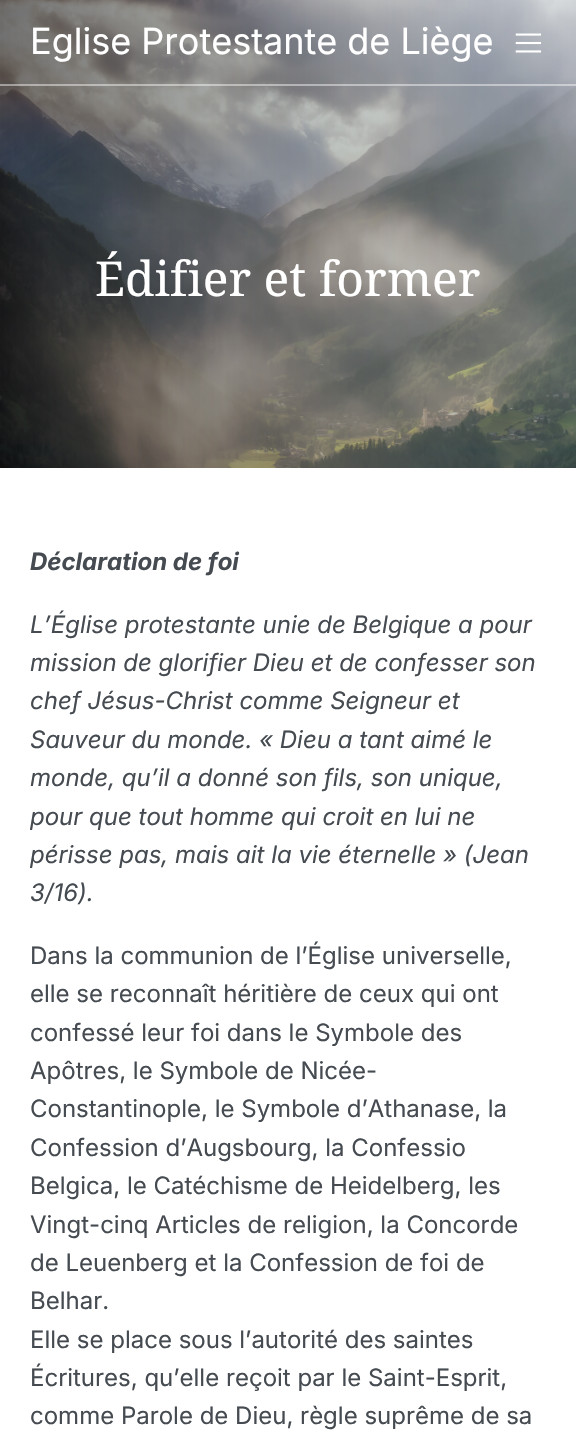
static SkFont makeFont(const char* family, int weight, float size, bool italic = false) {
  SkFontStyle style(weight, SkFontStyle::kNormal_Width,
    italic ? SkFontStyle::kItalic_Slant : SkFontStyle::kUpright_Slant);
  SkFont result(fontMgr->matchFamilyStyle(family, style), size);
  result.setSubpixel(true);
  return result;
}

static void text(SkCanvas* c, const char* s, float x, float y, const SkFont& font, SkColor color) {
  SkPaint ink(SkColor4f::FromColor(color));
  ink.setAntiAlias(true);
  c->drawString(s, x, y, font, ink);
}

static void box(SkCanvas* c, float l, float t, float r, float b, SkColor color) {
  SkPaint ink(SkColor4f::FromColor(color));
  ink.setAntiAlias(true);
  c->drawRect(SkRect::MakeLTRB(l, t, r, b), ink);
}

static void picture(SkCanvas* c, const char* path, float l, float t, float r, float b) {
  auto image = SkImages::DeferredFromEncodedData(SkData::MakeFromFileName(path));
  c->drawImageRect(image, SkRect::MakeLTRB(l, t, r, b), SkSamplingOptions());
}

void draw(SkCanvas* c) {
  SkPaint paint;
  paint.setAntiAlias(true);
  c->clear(0xffffffff);
  picture(c, "img_02.png", 0, 0, 576, 468);
  box(c, 0, 84, 576, 86, 0x70ffffff);
  SkFont face1 = makeFont("Inter", 400, 36);
  text(c, "Eglise Protestante de Liège", 30, 54, face1, 0xffffffff);
  picture(c, "img_01.png", 515, 33, 542, 53);
  SkFont face2 = makeFont("Noto Serif", 400, 48);
  text(c, "Édifier et former", 95, 296, face2, 0xffffffff);
  SkFont face3 = makeFont("Inter", 700, 24, true);
  text(c, "Déclaration de foi", 30, 570, face3, 0xff454b51);
  SkFont face4 = makeFont("Inter", 400, 24, true);
  text(c, "L’Église protestante unie de Belgique a pour", 30, 633, face4, 0xff454b51);
  text(c, "mission de glorifier Dieu et de confesser son", 30, 671, face4, 0xff454b51);
  text(c, "chef Jésus-Christ comme Seigneur et", 30, 709, face4, 0xff454b51);
  text(c, "Sauveur du monde. « Dieu a tant aimé le", 30, 748, face4, 0xff454b51);
  text(c, "monde, qu’il a donné son fils, son unique,", 30, 786, face4, 0xff454b51);
  text(c, "pour que tout homme qui croit en lui ne", 30, 825, face4, 0xff454b51);
  text(c, "périsse pas, mais ait la vie éternelle » (Jean", 30, 863, face4, 0xff454b51);
  text(c, "3/16).", 30, 901, face4, 0xff454b51);
  SkFont face5 = makeFont("Inter", 400, 24);
  text(c, "Dans la communion de l’Église universelle,", 30, 964, face5, 0xff454b51);
  text(c, "elle se reconnaît héritière de ceux qui ont", 30, 1002, face5, 0xff454b51);
  text(c, "confessé leur foi dans le Symbole des", 30, 1041, face5, 0xff454b51);
  text(c, "Apôtres, le Symbole de Nicée-", 30, 1079, face5, 0xff454b51);
  text(c, "Constantinople, le Symbole d’Athanase, la", 30, 1117, face5, 0xff454b51);
  text(c, "Confession d’Augsbourg, la Confessio", 30, 1156, face5, 0xff454b51);
  text(c, "Belgica, le Catéchisme de Heidelberg, les", 30, 1194, face5, 0xff454b51);
  text(c, "Vingt-cinq Articles de religion, la Concorde", 30, 1233, face5, 0xff454b51);
  text(c, "de Leuenberg et la Confession de foi de", 30, 1271, face5, 0xff454b51);
  text(c, "Belhar.", 30, 1309, face5, 0xff454b51);
  text(c, "Elle se place sous l’autorité des saintes", 30, 1348, face5, 0xff454b51);
  text(c, "Écritures, qu’elle reçoit par le Saint-Esprit,", 30, 1386, face5, 0xff454b51);
  text(c, "comme Parole de Dieu, règle suprême de sa", 30, 1424, face5, 0xff454b51);
}
